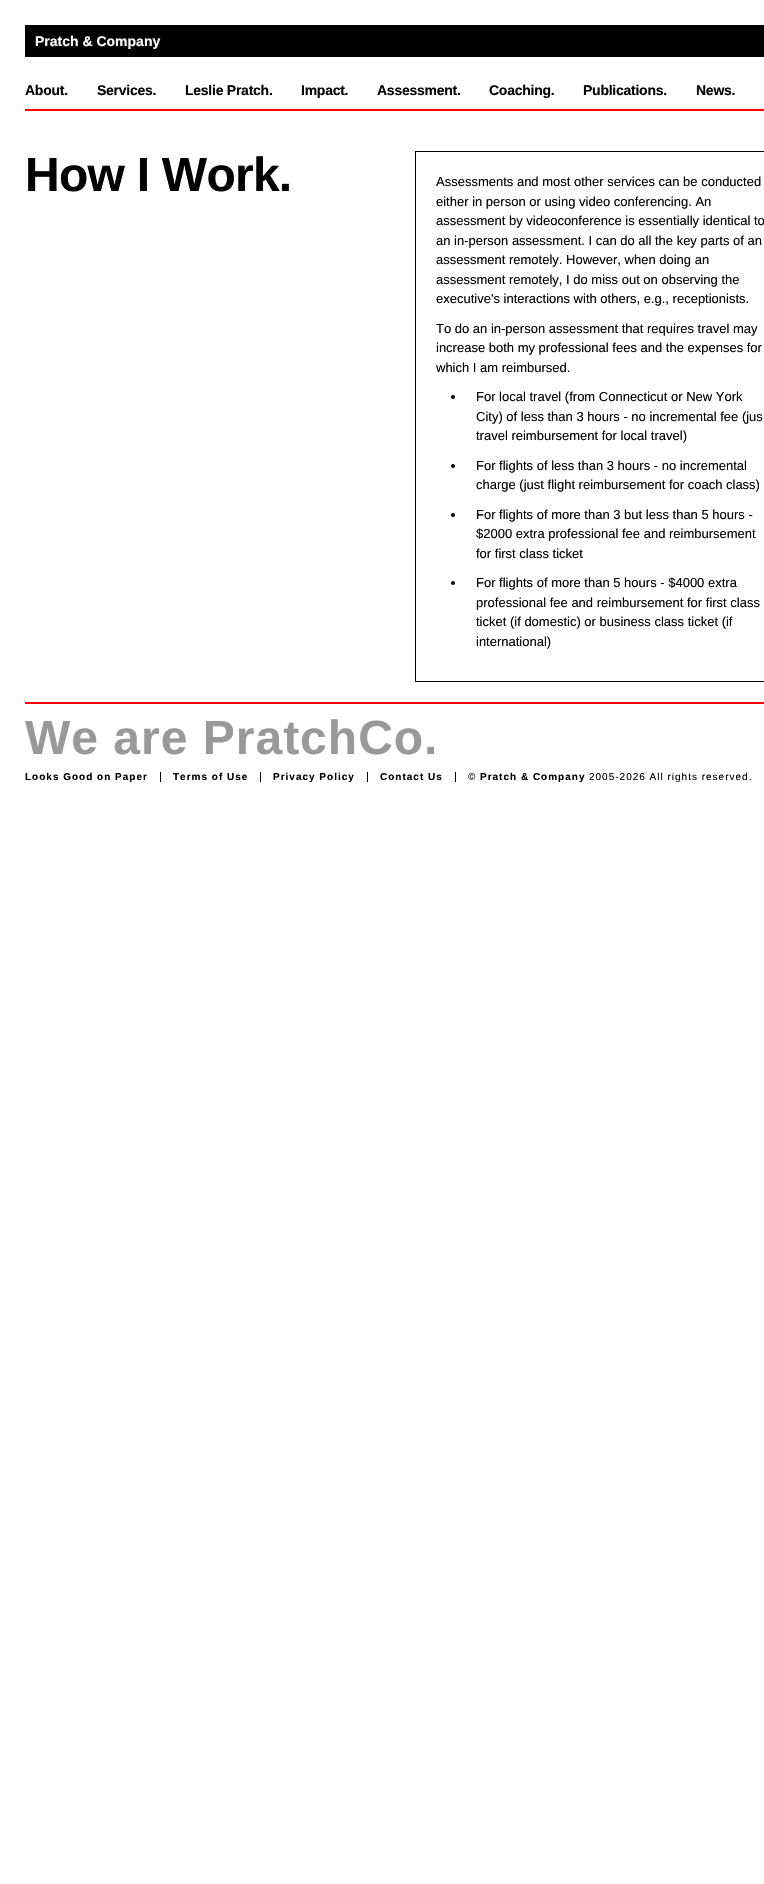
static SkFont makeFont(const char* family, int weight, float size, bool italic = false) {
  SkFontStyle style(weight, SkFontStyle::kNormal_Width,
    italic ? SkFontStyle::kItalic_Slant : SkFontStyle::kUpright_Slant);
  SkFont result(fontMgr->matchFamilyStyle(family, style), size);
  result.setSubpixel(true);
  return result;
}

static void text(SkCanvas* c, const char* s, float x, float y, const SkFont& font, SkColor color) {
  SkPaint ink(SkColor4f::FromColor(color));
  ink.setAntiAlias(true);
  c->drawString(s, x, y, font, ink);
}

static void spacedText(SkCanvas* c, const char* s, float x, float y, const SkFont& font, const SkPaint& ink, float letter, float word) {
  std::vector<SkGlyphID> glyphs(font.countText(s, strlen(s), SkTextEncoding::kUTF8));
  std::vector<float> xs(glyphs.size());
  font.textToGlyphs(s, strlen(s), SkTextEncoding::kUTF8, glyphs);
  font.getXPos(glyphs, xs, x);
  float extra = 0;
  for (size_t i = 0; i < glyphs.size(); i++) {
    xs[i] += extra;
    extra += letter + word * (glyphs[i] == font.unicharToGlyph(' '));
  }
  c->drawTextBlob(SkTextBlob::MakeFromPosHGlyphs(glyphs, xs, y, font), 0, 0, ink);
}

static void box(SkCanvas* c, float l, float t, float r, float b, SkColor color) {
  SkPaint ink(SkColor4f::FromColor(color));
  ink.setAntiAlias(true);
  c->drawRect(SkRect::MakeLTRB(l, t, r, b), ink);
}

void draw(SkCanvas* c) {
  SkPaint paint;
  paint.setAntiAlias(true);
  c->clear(0xffffffff);
  box(c, 25, 25, 764, 57, 0xff000000);
  SkFont face1 = makeFont("Liberation Sans", 700, 14);
  text(c, "Pratch & Company", 35, 46, face1, 0xffffffff);
  box(c, 25, 109, 764, 111, 0xffff0000);
  paint.setColor(0xff000000);
  spacedText(c, "About.", 25, 95, face1, paint, -0.25f, 0);
  spacedText(c, "Services.", 97, 95, face1, paint, -0.25f, 0);
  spacedText(c, "Leslie Pratch.", 185, 95, face1, paint, -0.25f, 0);
  spacedText(c, "Impact.", 301, 95, face1, paint, -0.25f, 0);
  spacedText(c, "Assessment.", 377, 95, face1, paint, -0.25f, 0);
  spacedText(c, "Coaching.", 489, 95, face1, paint, -0.25f, 0);
  spacedText(c, "Publications.", 583, 95, face1, paint, -0.25f, 0);
  spacedText(c, "News.", 696, 95, face1, paint, -0.25f, 0);
  SkFont face2 = makeFont("Liberation Sans", 700, 48);
  spacedText(c, "How I Work.", 25, 191, face2, paint, -0.75f, 0);
  paint.setStyle(SkPaint::kStroke_Style);
  paint.setStrokeWidth(1);
  c->drawRect(SkRect::MakeLTRB(415.5f, 151.5f, 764.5f, 681.5f), paint);
  SkFont face3 = makeFont("Liberation Sans", 400, 13);
  text(c, "Assessments and most other services can be conducted", 436, 186, face3, 0xff000000);
  text(c, "either in person or using video conferencing. An", 436, 206, face3, 0xff000000);
  text(c, "assessment by videoconference is essentially identical to", 436, 225, face3, 0xff000000);
  text(c, "an in-person assessment. I can do all the key parts of an", 436, 245, face3, 0xff000000);
  text(c, "assessment remotely. However, when doing an", 436, 264, face3, 0xff000000);
  text(c, "assessment remotely, I do miss out on observing the", 436, 284, face3, 0xff000000);
  text(c, "executive's interactions with others, e.g., receptionists.", 436, 303, face3, 0xff000000);
  text(c, "To do an in-person assessment that requires travel may", 436, 333, face3, 0xff000000);
  text(c, "increase both my professional fees and the expenses for", 436, 352, face3, 0xff000000);
  text(c, "which I am reimbursed.", 436, 372, face3, 0xff000000);
  paint.setStyle(SkPaint::kFill_Style);
  c->drawCircle(453, 397, 2, paint);
  text(c, "For local travel (from Connecticut or New York", 476, 401, face3, 0xff000000);
  text(c, "City) of less than 3 hours - no incremental fee (jus", 476, 421, face3, 0xff000000);
  text(c, "travel reimbursement for local travel)", 476, 440, face3, 0xff000000);
  c->drawCircle(453, 466, 2, paint);
  text(c, "For flights of less than 3 hours - no incremental", 476, 470, face3, 0xff000000);
  text(c, "charge (just flight reimbursement for coach class)", 476, 489, face3, 0xff000000);
  c->drawCircle(453, 515, 2, paint);
  text(c, "For flights of more than 3 but less than 5 hours -", 476, 519, face3, 0xff000000);
  text(c, "$2000 extra professional fee and reimbursement", 476, 538, face3, 0xff000000);
  text(c, "for first class ticket", 476, 558, face3, 0xff000000);
  c->drawCircle(453, 583, 2, paint);
  text(c, "For flights of more than 5 hours - $4000 extra", 476, 587, face3, 0xff000000);
  text(c, "professional fee and reimbursement for first class", 476, 607, face3, 0xff000000);
  text(c, "ticket (if domestic) or business class ticket (if", 476, 626, face3, 0xff000000);
  text(c, "international)", 476, 646, face3, 0xff000000);
  box(c, 25, 702, 764, 704, 0xffff0000);
  paint.setColor(0xff999999);
  spacedText(c, "We are PratchCo.", 25, 754, face2, paint, 1, 0);
  box(c, 160, 772, 161, 782, 0xff000000);
  SkFont face4 = makeFont("Liberation Sans", 700, 10);
  paint.setColor(0xff000000);
  spacedText(c, "Looks Good on Paper", 25, 780, face4, paint, 1, 0);
  box(c, 260, 772, 261, 782, 0xff000000);
  spacedText(c, "Terms of Use", 173, 780, face4, paint, 1, 0);
  box(c, 367, 772, 368, 782, 0xff000000);
  spacedText(c, "Privacy Policy", 273, 780, face4, paint, 1, 0);
  box(c, 455, 772, 456, 782, 0xff000000);
  spacedText(c, "Contact Us", 380, 780, face4, paint, 1, 0);
  SkFont face5 = makeFont("Liberation Sans", 400, 10);
  spacedText(c, "©", 468, 780, face5, paint, 1, 0);
  spacedText(c, "Pratch & Company", 480, 780, face4, paint, 1, 0);
  spacedText(c, "2005-2026 All rights reserved.", 589, 780, face5, paint, 1, 0);
}
